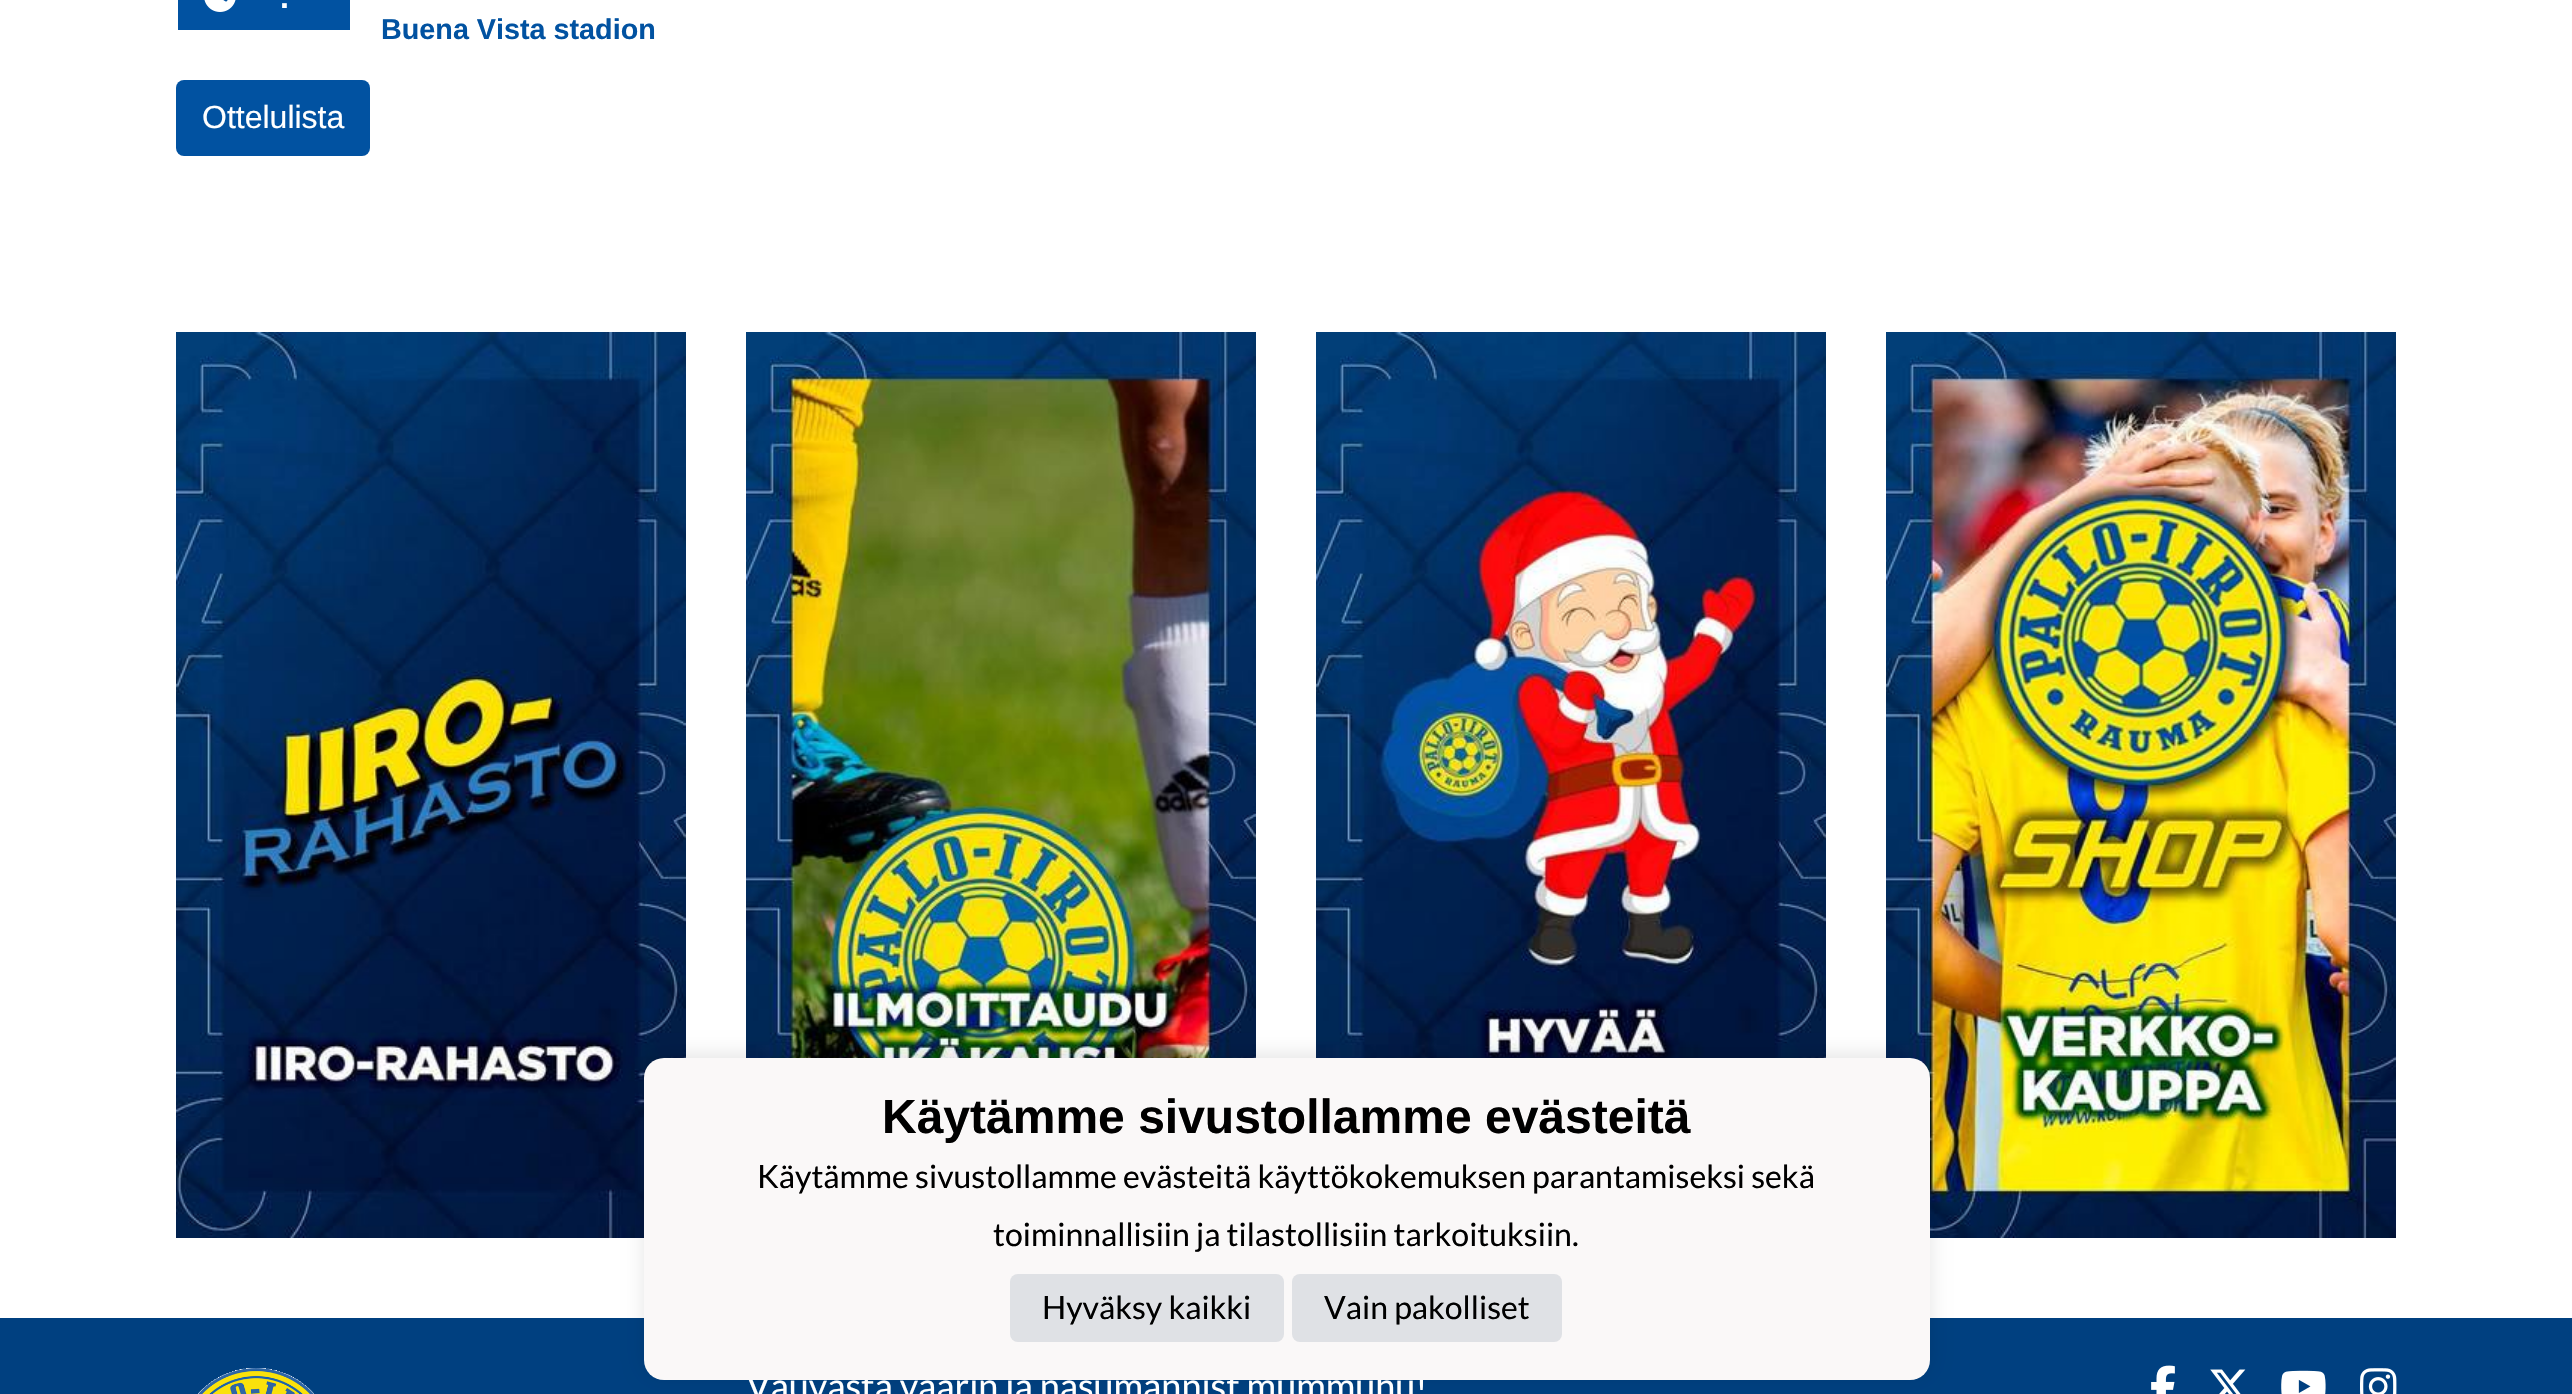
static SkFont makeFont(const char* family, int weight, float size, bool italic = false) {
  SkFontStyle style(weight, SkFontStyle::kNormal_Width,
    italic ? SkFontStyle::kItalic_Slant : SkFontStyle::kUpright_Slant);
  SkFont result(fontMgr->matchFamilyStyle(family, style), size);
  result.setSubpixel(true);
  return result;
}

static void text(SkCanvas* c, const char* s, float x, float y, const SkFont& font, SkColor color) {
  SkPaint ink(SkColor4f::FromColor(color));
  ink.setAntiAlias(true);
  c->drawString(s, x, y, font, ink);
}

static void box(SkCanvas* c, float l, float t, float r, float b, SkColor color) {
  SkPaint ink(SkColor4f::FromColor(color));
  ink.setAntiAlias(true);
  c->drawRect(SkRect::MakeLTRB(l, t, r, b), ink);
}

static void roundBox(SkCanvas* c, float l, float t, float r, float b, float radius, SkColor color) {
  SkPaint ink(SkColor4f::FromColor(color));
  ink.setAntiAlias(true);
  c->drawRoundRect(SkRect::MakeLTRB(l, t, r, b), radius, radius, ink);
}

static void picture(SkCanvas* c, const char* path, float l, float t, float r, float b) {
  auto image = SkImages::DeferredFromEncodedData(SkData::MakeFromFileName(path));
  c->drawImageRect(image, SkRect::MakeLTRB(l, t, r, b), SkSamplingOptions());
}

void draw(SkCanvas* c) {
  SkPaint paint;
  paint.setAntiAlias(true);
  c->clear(0xffffffff);
  box(c, 178, 0, 350, 30, 0xff0152a1);
  picture(c, "img_01.png", 204, 0, 236, 12);
  SkFont face1 = makeFont("Liberation Sans", 700, 32);
  text(c, ".", 280, 8, face1, 0xffffffff);
  SkFont face2 = makeFont("Liberation Sans", 700, 28.75f);
  text(c, "Buena Vista stadion", 381, 39, face2, 0xff0152a1);
  roundBox(c, 176, 80, 370, 156, 8, 0xff0152a1);
  SkFont face3 = makeFont("Liberation Sans", 400, 32);
  text(c, "Ottelulista", 202, 128, face3, 0xffffffff);
  picture(c, "img_02.png", 176, 332, 686, 1238);
  picture(c, "img_03.png", 746, 332, 1256, 1058);
  picture(c, "img_04.png", 1316, 332, 1826, 1058);
  picture(c, "img_05.png", 1886, 332, 2396, 1238);
  box(c, 0, 1318, 2572, 1394, 0xff004080);
  paint.setColor(0x1a000000);
  paint.setMaskFilter(SkMaskFilter::MakeBlur(kNormal_SkBlurStyle, 10));
  c->drawRoundRect(SkRect::MakeLTRB(644, 1054, 1930, 1376), 20, 20, paint);
  paint.setMaskFilter(nullptr);
  SkFont face4 = makeFont("Lato", 400, 36);
  text(c, "Vauvasta vaarin ja nasumannist mummuhu!", 746, 1399, face4, 0xffffffff);
  roundBox(c, 644, 1058, 1930, 1380, 20, 0xfffaf8f8);
  SkFont face5 = makeFont("Liberation Sans", 700, 48);
  text(c, "Käytämme sivustollamme evästeitä", 882, 1133, face5, 0xff000000);
  SkFont face6 = makeFont("Lato", 400, 32);
  text(c, "Käytämme sivustollamme evästeitä käyttökokemuksen parantamiseksi sekä", 757, 1188, face6, 0xff000000);
  text(c, "toiminnallisiin ja tilastollisiin tarkoituksiin.", 993, 1246, face6, 0xff000000);
  roundBox(c, 1010, 1274, 1284, 1342, 8, 0xffdfe1e5);
  text(c, "Hyväksy kaikki", 1042, 1319, face6, 0xff000000);
  roundBox(c, 1292, 1274, 1562, 1342, 8, 0xffdfe1e5);
  text(c, "Vain pakolliset", 1324, 1319, face6, 0xff000000);
  picture(c, "img_06.png", 198, 1368, 314, 1394);
  picture(c, "img_07.png", 2151, 1365, 2175, 1394);
  picture(c, "img_08.png", 2210, 1369, 2246, 1394);
  picture(c, "img_09.png", 2281, 1370, 2326, 1394);
  picture(c, "img_10.png", 2360, 1368, 2397, 1394);
}
